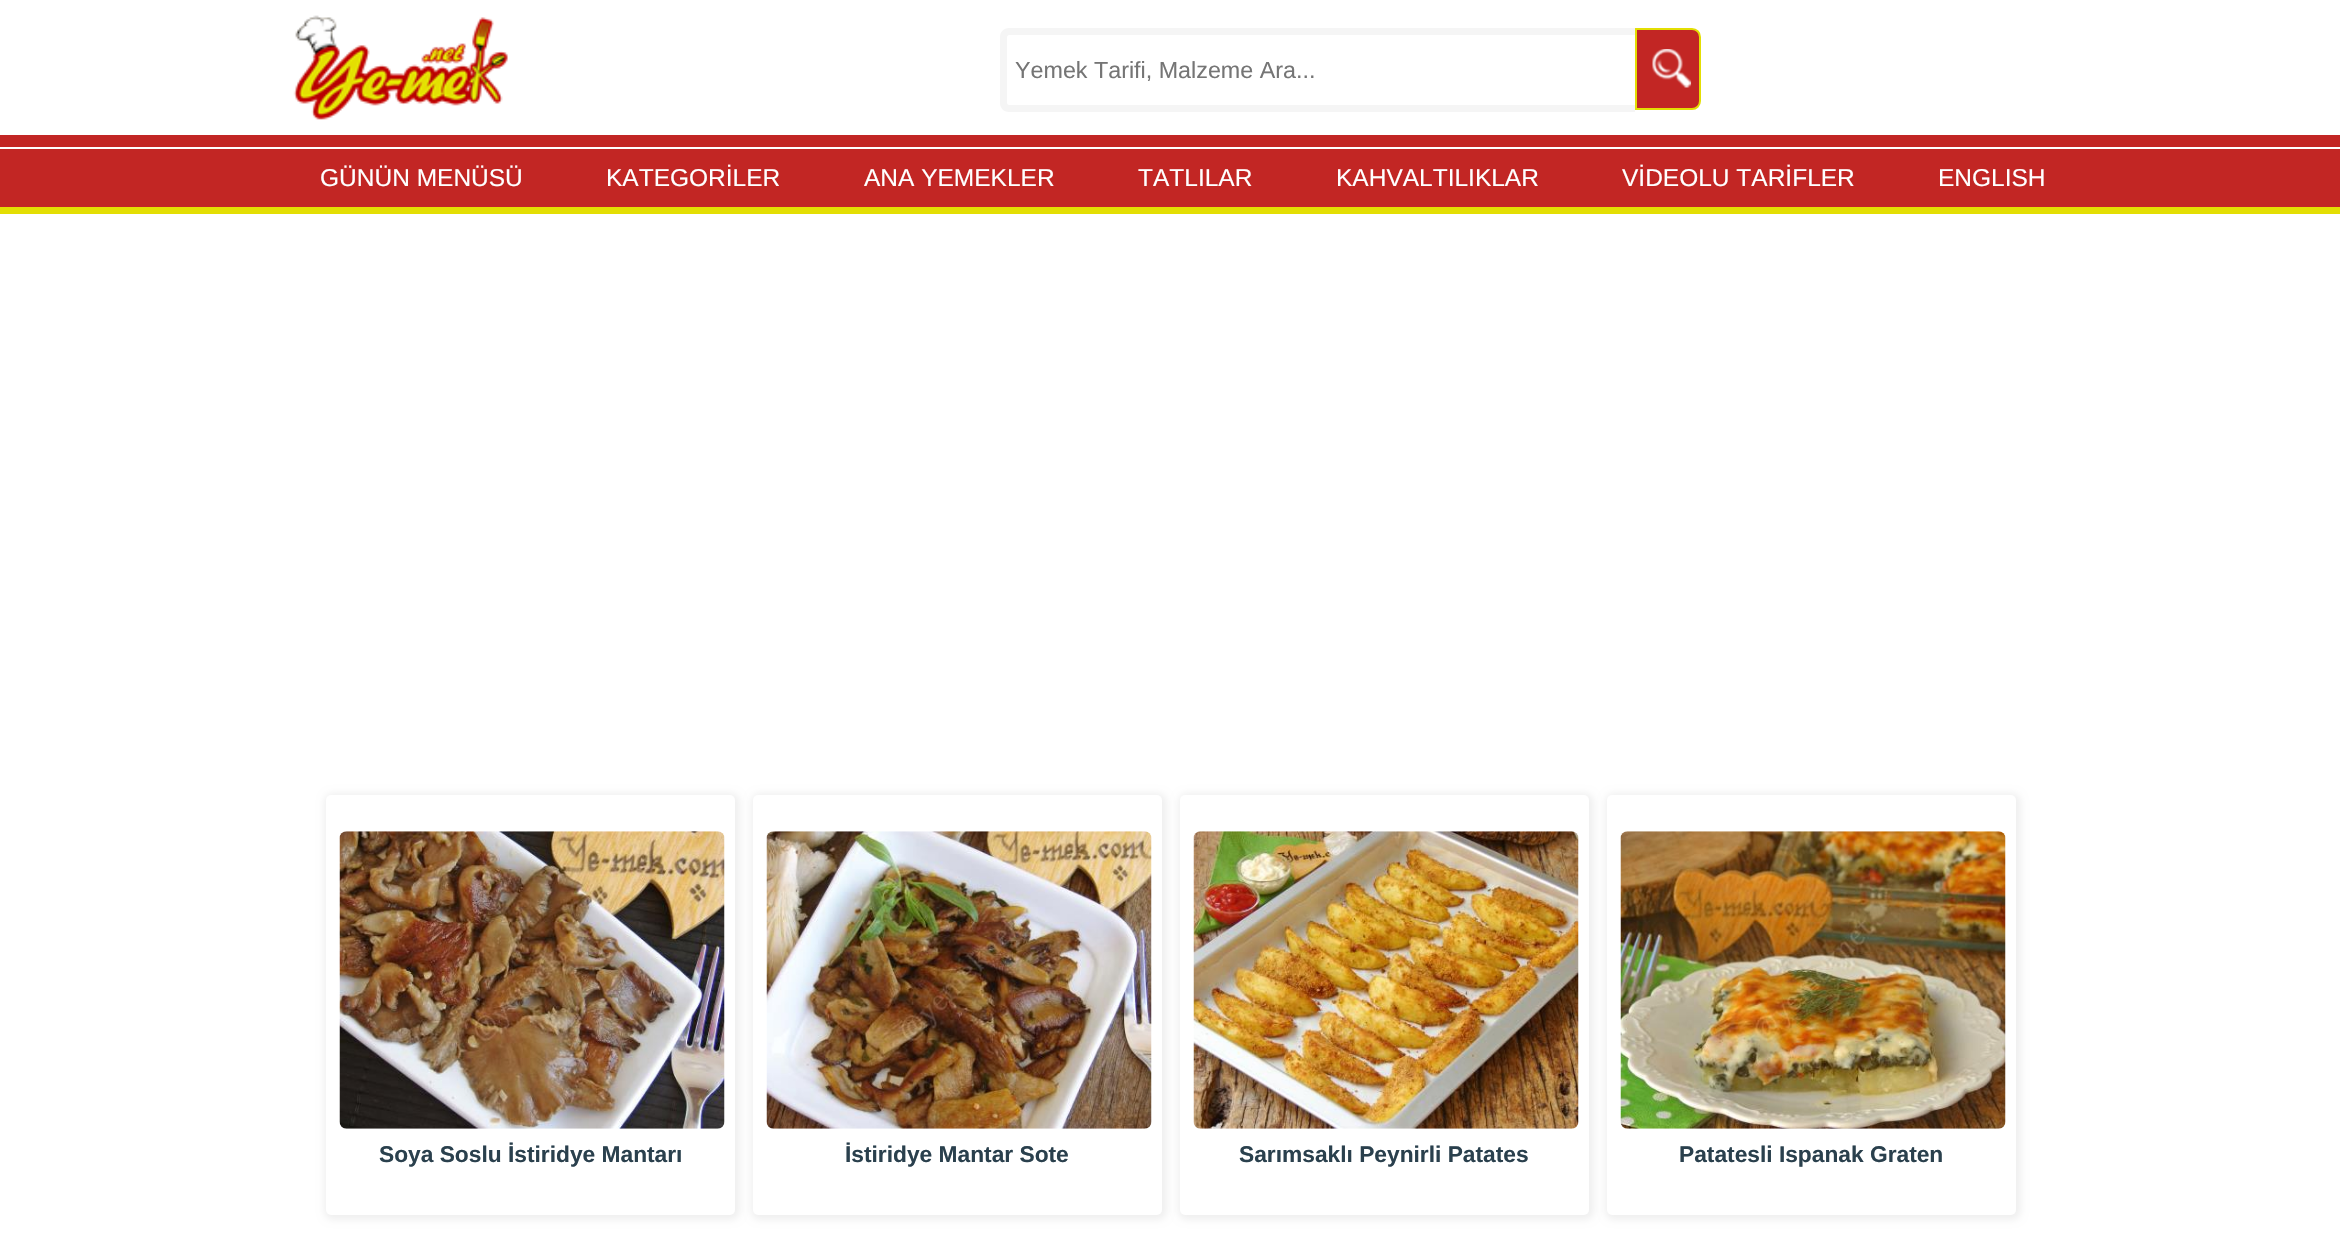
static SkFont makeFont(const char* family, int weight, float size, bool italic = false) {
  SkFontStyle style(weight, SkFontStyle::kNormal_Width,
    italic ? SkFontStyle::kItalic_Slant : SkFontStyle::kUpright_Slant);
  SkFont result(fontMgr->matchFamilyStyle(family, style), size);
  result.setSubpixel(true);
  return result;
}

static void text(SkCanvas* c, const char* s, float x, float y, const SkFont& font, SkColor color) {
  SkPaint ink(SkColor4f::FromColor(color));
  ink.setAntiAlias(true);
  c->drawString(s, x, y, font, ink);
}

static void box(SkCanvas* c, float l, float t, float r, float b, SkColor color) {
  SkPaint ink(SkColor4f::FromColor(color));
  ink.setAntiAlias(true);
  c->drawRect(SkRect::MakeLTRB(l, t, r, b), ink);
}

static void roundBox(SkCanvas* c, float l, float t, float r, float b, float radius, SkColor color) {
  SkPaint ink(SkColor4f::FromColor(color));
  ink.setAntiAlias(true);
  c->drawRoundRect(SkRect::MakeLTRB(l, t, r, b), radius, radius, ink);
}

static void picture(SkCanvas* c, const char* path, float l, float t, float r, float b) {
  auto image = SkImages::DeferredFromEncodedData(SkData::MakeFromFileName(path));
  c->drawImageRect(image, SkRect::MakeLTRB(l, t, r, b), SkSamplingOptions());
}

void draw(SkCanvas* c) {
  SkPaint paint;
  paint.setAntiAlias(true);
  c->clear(0xffffffff);
  picture(c, "img_01.png", 293, 15, 508, 120);
  paint.setColor(0xfff5f5f5);
  c->drawPath(SkPathBuilder(SkPathFillType::kEvenOdd).moveTo(1009, 28).lineTo(1635, 28).lineTo(1635, 112).lineTo(1009, 112).cubicTo(1004, 112, 1000, 108, 1000, 103).lineTo(1000, 37).cubicTo(1000, 32, 1004, 28, 1009, 28).close().moveTo(1009, 35).lineTo(1635, 35).lineTo(1635, 105).lineTo(1009, 105).cubicTo(1008, 105, 1007, 104, 1007, 103).lineTo(1007, 37).cubicTo(1007, 36, 1008, 35, 1009, 35).close().detach(), paint);
  SkFont face1 = makeFont("Liberation Sans", 400, 23.3f);
  text(c, "Yemek Tarifi, Malzeme Ara...", 1015, 78, face1, 0xff757575);
  paint.setColor(0xffc22624);
  c->drawPath(SkPathBuilder().moveTo(1636, 29).lineTo(1692, 29).cubicTo(1696.5f, 29, 1700, 32.5f, 1700, 37).lineTo(1700, 101).cubicTo(1700, 105.5f, 1696.5f, 109, 1692, 109).lineTo(1636, 109).close().detach(), paint);
  paint.setStyle(SkPaint::kStroke_Style);
  paint.setStrokeWidth(2);
  paint.setColor(0xffe3de03);
  c->drawPath(SkPathBuilder().moveTo(1636, 29).lineTo(1692, 29).cubicTo(1696.5f, 29, 1700, 32.5f, 1700, 37).lineTo(1700, 101).cubicTo(1700, 105.5f, 1696.5f, 109, 1692, 109).lineTo(1636, 109).close().detach(), paint);
  picture(c, "img_02.png", 1652, 49, 1692, 88);
  box(c, 0, 135, 2340, 147, 0xffc22624);
  box(c, 0, 149, 2340, 207, 0xffc22624);
  box(c, 0, 207, 2340, 214, 0xffe3de03);
  SkFont face2 = makeFont("Liberation Sans", 400, 24.5f);
  text(c, "GÜNÜN MENÜSÜ", 320, 186, face2, 0xffffffff);
  text(c, "KATEGORİLER", 606, 186, face2, 0xffffffff);
  text(c, "ANA YEMEKLER", 864, 186, face2, 0xffffffff);
  text(c, "TATLILAR", 1138, 186, face2, 0xffffffff);
  text(c, "KAHVALTILIKLAR", 1336, 186, face2, 0xffffffff);
  text(c, "VİDEOLU TARİFLER", 1622, 186, face2, 0xffffffff);
  text(c, "ENGLISH", 1938, 186, face2, 0xffffffff);
  paint.setStyle(SkPaint::kFill_Style);
  paint.setColor(0x0f000000);
  paint.setMaskFilter(SkMaskFilter::MakeBlur(kNormal_SkBlurStyle, 3.5f));
  c->drawRoundRect(SkRect::MakeLTRB(324, 793, 740, 1220), 9, 9, paint);
  paint.setMaskFilter(nullptr);
  roundBox(c, 326, 795, 735, 1215, 5, 0xffffffff);
  picture(c, "img_03.png", 339, 831, 725, 1129);
  SkFont face3 = makeFont("Liberation Sans", 700, 22.75f);
  text(c, "Soya Soslu İstiridye Mantarı", 379, 1162, face3, 0xff2a404d);
  paint.setMaskFilter(SkMaskFilter::MakeBlur(kNormal_SkBlurStyle, 3.5f));
  c->drawRoundRect(SkRect::MakeLTRB(751, 793, 1167, 1220), 9, 9, paint);
  paint.setMaskFilter(nullptr);
  roundBox(c, 753, 795, 1162, 1215, 5, 0xffffffff);
  picture(c, "img_04.png", 766, 831, 1152, 1129);
  text(c, "İstiridye Mantar Sote", 845, 1162, face3, 0xff2a404d);
  paint.setMaskFilter(SkMaskFilter::MakeBlur(kNormal_SkBlurStyle, 3.5f));
  c->drawRoundRect(SkRect::MakeLTRB(1178, 793, 1594, 1220), 9, 9, paint);
  paint.setMaskFilter(nullptr);
  roundBox(c, 1180, 795, 1589, 1215, 5, 0xffffffff);
  picture(c, "img_05.png", 1193, 831, 1579, 1129);
  text(c, "Sarımsaklı Peynirli Patates", 1239, 1162, face3, 0xff2a404d);
  paint.setMaskFilter(SkMaskFilter::MakeBlur(kNormal_SkBlurStyle, 3.5f));
  c->drawRoundRect(SkRect::MakeLTRB(1605, 793, 2021, 1220), 9, 9, paint);
  paint.setMaskFilter(nullptr);
  roundBox(c, 1607, 795, 2016, 1215, 5, 0xffffffff);
  picture(c, "img_06.png", 1620, 831, 2006, 1129);
  text(c, "Patatesli Ispanak Graten", 1679, 1162, face3, 0xff2a404d);
}
